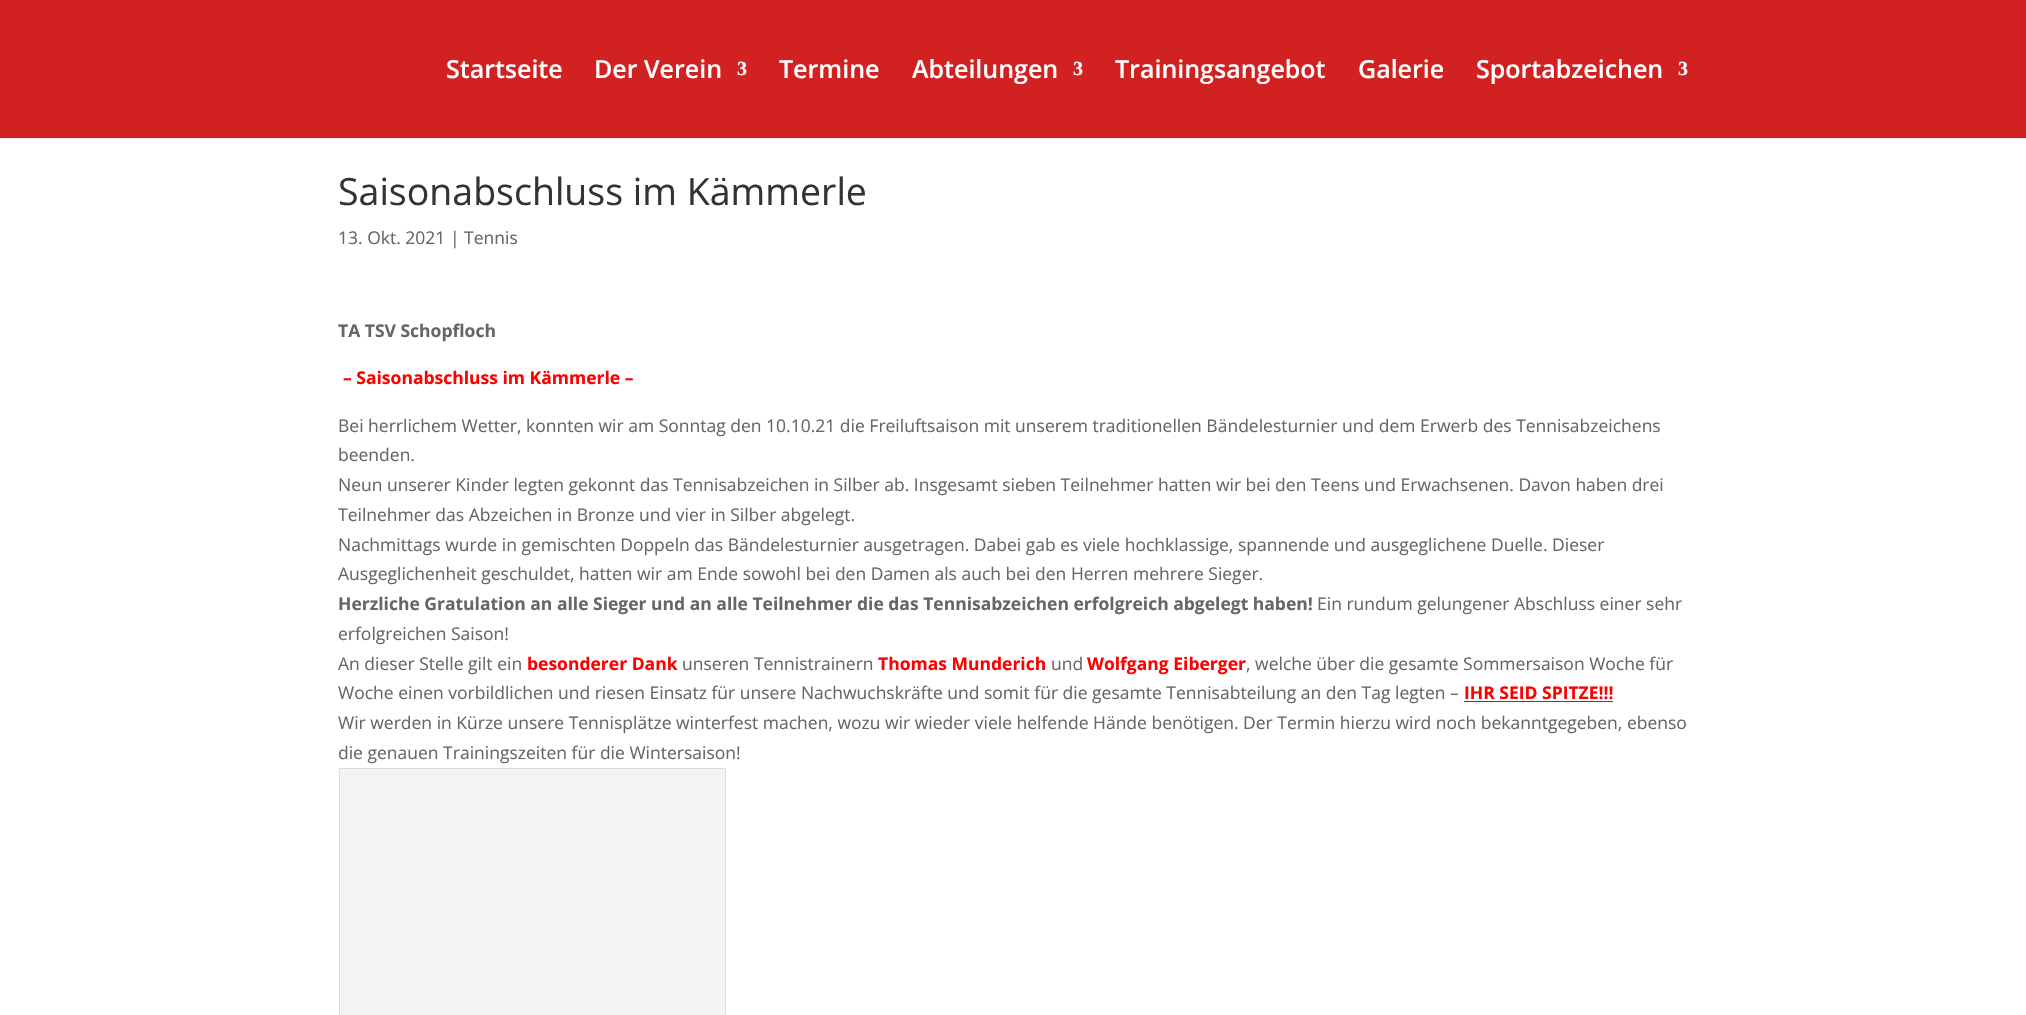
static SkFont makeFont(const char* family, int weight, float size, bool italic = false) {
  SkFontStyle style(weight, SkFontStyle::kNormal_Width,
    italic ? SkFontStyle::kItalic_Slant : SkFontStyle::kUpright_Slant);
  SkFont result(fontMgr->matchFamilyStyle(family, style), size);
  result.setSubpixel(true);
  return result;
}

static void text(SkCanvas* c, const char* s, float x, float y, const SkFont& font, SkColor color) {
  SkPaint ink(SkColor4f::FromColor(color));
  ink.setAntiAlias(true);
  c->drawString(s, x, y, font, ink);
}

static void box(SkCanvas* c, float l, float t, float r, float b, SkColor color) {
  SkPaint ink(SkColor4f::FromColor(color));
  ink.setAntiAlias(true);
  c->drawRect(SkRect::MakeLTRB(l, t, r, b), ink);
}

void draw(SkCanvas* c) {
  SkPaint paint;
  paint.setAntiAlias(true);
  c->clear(0xffffffff);
  box(c, 0, 138, 2026, 139, 0xffe6e6e6);
  box(c, 0, 0, 2026, 138, 0xffd12121);
  SkFont face1 = makeFont("Open Sans", 600, 25);
  text(c, "Startseite", 446, 78, face1, 0xffffffff);
  text(c, "Der Verein", 594, 78, face1, 0xffffffff);
  SkFont face2 = makeFont("Liberation Serif", 700, 20);
  text(c, "3", 737, 75, face2, 0xffffffff);
  text(c, "Termine", 779, 78, face1, 0xffffffff);
  text(c, "Abteilungen", 912, 78, face1, 0xffffffff);
  text(c, "3", 1073, 75, face2, 0xffffffff);
  text(c, "Trainingsangebot", 1115, 78, face1, 0xffffffff);
  text(c, "Galerie", 1358, 78, face1, 0xffffffff);
  text(c, "Sportabzeichen", 1476, 78, face1, 0xffffffff);
  text(c, "3", 1678, 75, face2, 0xffffffff);
  SkFont face3 = makeFont("Open Sans", 400, 37.5f);
  text(c, "Saisonabschluss im Kämmerle", 338, 205, face3, 0xff333333);
  SkFont face4 = makeFont("Open Sans", 400, 17.5f);
  text(c, "13. Okt. 2021 | Tennis", 338, 244, face4, 0xff666666);
  SkFont face5 = makeFont("Open Sans", 700, 17.5f);
  text(c, "TA TSV Schopfloch", 338, 337, face5, 0xff666666);
  text(c, "– Saisonabschluss im Kämmerle –", 343, 384, face5, 0xffff0000);
  text(c, "Bei herrlichem Wetter, konnten wir am Sonntag den 10.10.21 die Freiluftsaison mit unserem traditionellen Bändelesturnier und dem Erwerb des Tennisabzeichens", 338, 432, face4, 0xff666666);
  text(c, "beenden.", 338, 461, face4, 0xff666666);
  text(c, "Neun unserer Kinder legten gekonnt das Tennisabzeichen in Silber ab. Insgesamt sieben Teilnehmer hatten wir bei den Teens und Erwachsenen. Davon haben drei", 338, 491, face4, 0xff666666);
  text(c, "Teilnehmer das Abzeichen in Bronze und vier in Silber abgelegt.", 338, 521, face4, 0xff666666);
  text(c, "Nachmittags wurde in gemischten Doppeln das Bändelesturnier ausgetragen. Dabei gab es viele hochklassige, spannende und ausgeglichene Duelle. Dieser", 338, 551, face4, 0xff666666);
  text(c, "Ausgeglichenheit geschuldet, hatten wir am Ende sowohl bei den Damen als auch bei den Herren mehrere Sieger.", 338, 580, face4, 0xff666666);
  text(c, "Herzliche Gratulation an alle Sieger und an alle Teilnehmer die das Tennisabzeichen erfolgreich abgelegt haben!", 338, 610, face5, 0xff666666);
  text(c, "Ein rundum gelungener Abschluss einer sehr", 1317, 610, face4, 0xff666666);
  text(c, "erfolgreichen Saison!", 338, 640, face4, 0xff666666);
  text(c, "An dieser Stelle gilt ein", 338, 670, face4, 0xff666666);
  text(c, "besonderer Dank", 527, 670, face5, 0xffff0000);
  text(c, "unseren Tennistrainern", 682, 670, face4, 0xff666666);
  text(c, "Thomas Munderich", 878, 670, face5, 0xffff0000);
  text(c, "und", 1051, 670, face4, 0xff666666);
  text(c, "Wolfgang Eiberger", 1087, 670, face5, 0xffff0000);
  text(c, ", welche über die gesamte Sommersaison Woche für", 1246, 670, face4, 0xff666666);
  text(c, "Woche einen vorbildlichen und riesen Einsatz für unsere Nachwuchskräfte und somit für die gesamte Tennisabteilung an den Tag legten –", 338, 699, face4, 0xff666666);
  text(c, "IHR SEID SPITZE!!!", 1464, 699, face5, 0xffff0000);
  box(c, 1464, 701, 1613, 702, 0xffff0000);
  text(c, "Wir werden in Kürze unsere Tennisplätze winterfest machen, wozu wir wieder viele helfende Hände benötigen. Der Termin hierzu wird noch bekanntgegeben, ebenso", 338, 729, face4, 0xff666666);
  text(c, "die genauen Trainingszeiten für die Wintersaison!", 338, 759, face4, 0xff666666);
  paint.setColor(0xfff3f3f3);
  c->drawRect(SkRect::MakeLTRB(339.5f, 768.5f, 725.5f, 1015.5f), paint);
  paint.setStyle(SkPaint::kStroke_Style);
  paint.setStrokeWidth(1);
  paint.setColor(0xffdddddd);
  c->drawRect(SkRect::MakeLTRB(339.5f, 768.5f, 725.5f, 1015.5f), paint);
}
